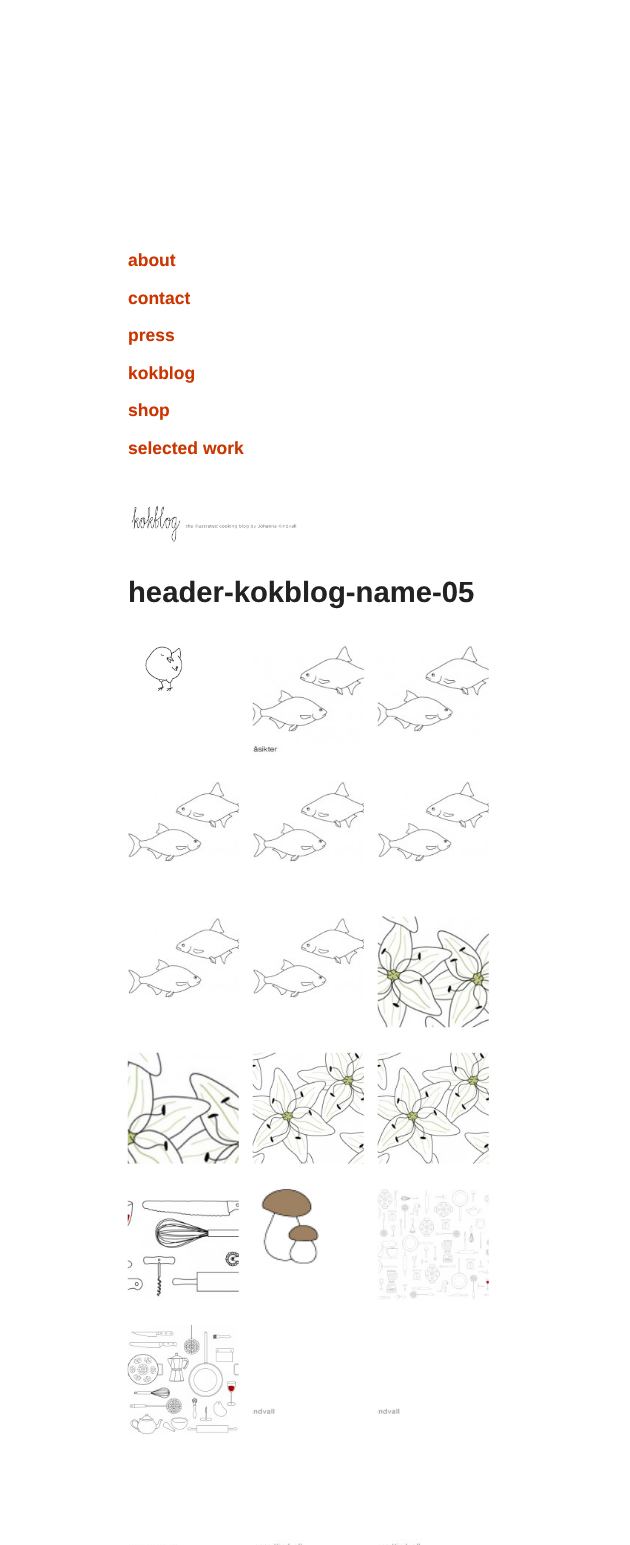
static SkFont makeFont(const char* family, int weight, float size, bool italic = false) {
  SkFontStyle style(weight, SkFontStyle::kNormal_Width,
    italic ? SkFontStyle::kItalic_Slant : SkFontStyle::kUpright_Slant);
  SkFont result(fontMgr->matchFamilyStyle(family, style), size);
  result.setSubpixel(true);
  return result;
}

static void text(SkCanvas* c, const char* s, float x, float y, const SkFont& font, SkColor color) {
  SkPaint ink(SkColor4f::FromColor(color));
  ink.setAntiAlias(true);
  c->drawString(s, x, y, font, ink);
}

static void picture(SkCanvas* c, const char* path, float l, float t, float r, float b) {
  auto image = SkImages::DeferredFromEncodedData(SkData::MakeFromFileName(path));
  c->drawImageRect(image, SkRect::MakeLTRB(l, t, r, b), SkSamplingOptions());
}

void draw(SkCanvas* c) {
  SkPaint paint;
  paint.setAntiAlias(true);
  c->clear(0xffffffff);
  SkFont face1 = makeFont("Liberation Sans", 700, 17.5f);
  text(c, "about", 128, 266, face1, 0xffcb3500);
  text(c, "contact", 128, 304, face1, 0xffcb3500);
  text(c, "press", 128, 341, face1, 0xffcb3500);
  text(c, "kokblog", 128, 379, face1, 0xffcb3500);
  text(c, "shop", 128, 416, face1, 0xffcb3500);
  text(c, "selected work", 128, 454, face1, 0xffcb3500);
  picture(c, "img_01.png", 131, 506, 297, 542);
  SkFont face2 = makeFont("Liberation Sans", 700, 29.25f);
  text(c, "header-kokblog-name-05", 128, 602, face2, 0xff222222);
  picture(c, "img_02.png", 145, 646, 183, 692);
  picture(c, "img_03.png", 252, 645, 364, 755);
  picture(c, "img_04.png", 377, 646, 489, 733);
  picture(c, "img_05.png", 128, 781, 239, 862);
  picture(c, "img_05.png", 253, 781, 364, 862);
  picture(c, "img_05.png", 378, 781, 489, 862);
  picture(c, "img_06.png", 128, 918, 239, 998);
  picture(c, "img_06.png", 253, 918, 364, 998);
  picture(c, "img_07.png", 377, 916, 489, 1028);
  picture(c, "img_08.png", 127, 1052, 239, 1164);
  picture(c, "img_09.png", 252, 1052, 364, 1164);
  picture(c, "img_10.png", 377, 1052, 489, 1164);
  picture(c, "img_11.png", 127, 1200, 239, 1300);
  picture(c, "img_12.png", 261, 1188, 319, 1264);
  picture(c, "img_13.png", 377, 1189, 489, 1300);
  picture(c, "img_14.png", 127, 1325, 239, 1435);
  picture(c, "img_15.png", 252, 1408, 275, 1414);
  picture(c, "img_16.png", 377, 1408, 400, 1414);
  picture(c, "img_17.png", 129, 1544, 177, 1545);
  picture(c, "img_18.png", 256, 1539, 304, 1545);
  picture(c, "img_19.png", 379, 1539, 422, 1545);
}
